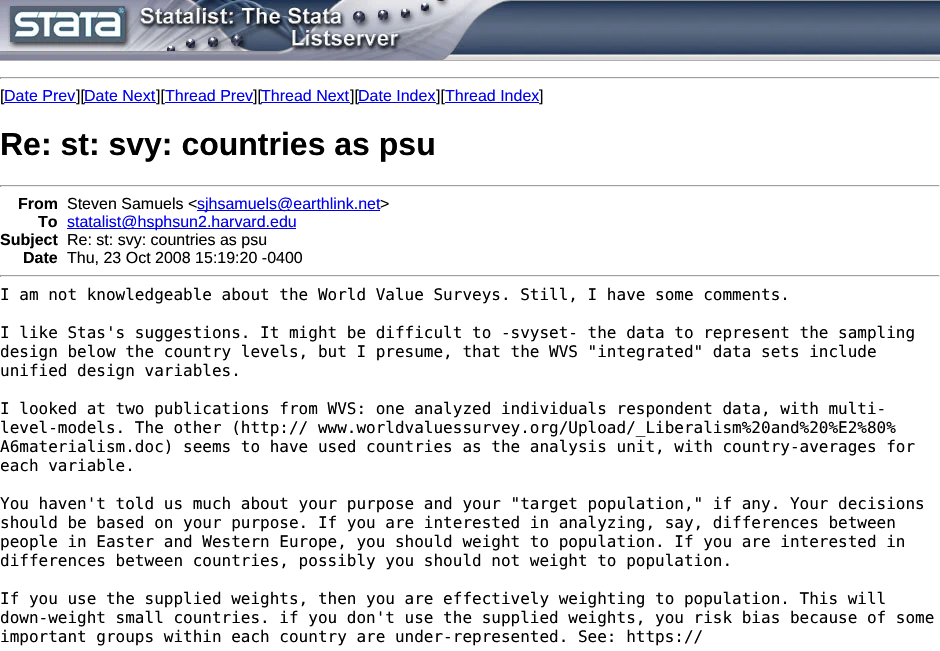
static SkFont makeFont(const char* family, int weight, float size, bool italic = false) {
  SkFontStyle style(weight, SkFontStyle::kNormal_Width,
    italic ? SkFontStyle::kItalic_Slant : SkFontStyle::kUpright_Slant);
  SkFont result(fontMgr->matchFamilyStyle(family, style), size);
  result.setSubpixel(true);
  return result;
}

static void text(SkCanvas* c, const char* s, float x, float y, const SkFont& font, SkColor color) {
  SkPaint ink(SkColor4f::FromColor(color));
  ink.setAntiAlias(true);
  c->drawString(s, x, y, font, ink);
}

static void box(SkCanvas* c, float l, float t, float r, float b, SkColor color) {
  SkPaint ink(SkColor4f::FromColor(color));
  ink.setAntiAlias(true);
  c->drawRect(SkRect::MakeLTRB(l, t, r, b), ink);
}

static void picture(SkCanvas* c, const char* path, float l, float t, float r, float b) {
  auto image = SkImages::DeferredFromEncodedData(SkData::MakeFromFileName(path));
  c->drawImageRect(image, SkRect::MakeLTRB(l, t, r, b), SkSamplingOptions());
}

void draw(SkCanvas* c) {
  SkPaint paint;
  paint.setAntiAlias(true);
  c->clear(0xffffffff);
  picture(c, "img_01.png", 512, 0, 940, 60);
  box(c, 0, 60, 940, 61, 0xffafafaf);
  picture(c, "img_02.png", 0, 0, 512, 60);
  box(c, 0, 77, 940, 78, 0xff9f9f9f);
  box(c, 939, 77, 940, 79, 0xffeeeeee);
  box(c, 0, 78, 940, 79, 0xffeeeeee);
  box(c, 0, 77, 1, 79, 0xff9f9f9f);
  SkFont face1 = makeFont("Liberation Sans", 400, 16);
  text(c, "[", 0, 101, face1, 0xff000000);
  text(c, "Date Prev", 4, 101, face1, 0xff0000ee);
  box(c, 4, 102, 76, 103, 0xff0000ee);
  text(c, "][", 76, 101, face1, 0xff000000);
  text(c, "Date Next", 84, 101, face1, 0xff0000ee);
  box(c, 84, 102, 156, 103, 0xff0000ee);
  text(c, "][", 156, 101, face1, 0xff000000);
  text(c, "Thread Prev", 165, 101, face1, 0xff0000ee);
  box(c, 165, 102, 253, 103, 0xff0000ee);
  text(c, "][", 253, 101, face1, 0xff000000);
  text(c, "Thread Next", 261, 101, face1, 0xff0000ee);
  box(c, 261, 102, 350, 103, 0xff0000ee);
  text(c, "][", 350, 101, face1, 0xff000000);
  text(c, "Date Index", 358, 101, face1, 0xff0000ee);
  box(c, 358, 102, 436, 103, 0xff0000ee);
  text(c, "][", 436, 101, face1, 0xff000000);
  text(c, "Thread Index", 445, 101, face1, 0xff0000ee);
  box(c, 445, 102, 539, 103, 0xff0000ee);
  text(c, "]", 539, 101, face1, 0xff000000);
  SkFont face2 = makeFont("Liberation Sans", 700, 32);
  text(c, "Re: st: svy: countries as psu", 0, 155, face2, 0xff000000);
  box(c, 0, 185, 940, 186, 0xff9f9f9f);
  box(c, 939, 185, 940, 187, 0xffeeeeee);
  box(c, 0, 186, 940, 187, 0xffeeeeee);
  box(c, 0, 185, 1, 187, 0xff9f9f9f);
  SkFont face3 = makeFont("Liberation Sans", 700, 16);
  text(c, "From", 18, 209, face3, 0xff000000);
  text(c, "Steven Samuels <", 67, 209, face1, 0xff000000);
  box(c, 197, 210, 380, 211, 0xff0000ee);
  text(c, "sjhsamuels@earthlink.net", 197, 209, face1, 0xff0000ee);
  text(c, ">", 380, 209, face1, 0xff000000);
  text(c, "To", 38, 227, face3, 0xff000000);
  box(c, 67, 228, 296, 229, 0xff0000ee);
  text(c, "statalist@hsphsun2.harvard.edu", 67, 227, face1, 0xff0000ee);
  text(c, "Subject", 0, 245, face3, 0xff000000);
  text(c, "Re: st: svy: countries as psu", 67, 245, face1, 0xff000000);
  text(c, "Date", 23, 263, face3, 0xff000000);
  text(c, "Thu, 23 Oct 2008 15:19:20 -0400", 67, 263, face1, 0xff000000);
  box(c, 0, 275, 940, 276, 0xff9f9f9f);
  box(c, 939, 275, 940, 277, 0xffeeeeee);
  box(c, 0, 276, 940, 277, 0xffeeeeee);
  box(c, 0, 275, 1, 277, 0xff9f9f9f);
  SkFont face4 = makeFont("DejaVu Sans Mono", 400, 16);
  text(c, "I am not knowledgeable about the World Value Surveys. Still, I have some comments.", 0, 300, face4, 0xff000000);
  text(c, "I like Stas's suggestions. It might be difficult to -svyset- the data to represent the sampling", 0, 338, face4, 0xff000000);
  text(c, "design below the country levels, but I presume, that the WVS \"integrated\" data sets include", 0, 357, face4, 0xff000000);
  text(c, "unified design variables.", 0, 376, face4, 0xff000000);
  text(c, "I looked at two publications from WVS: one analyzed individuals respondent data, with multi-", 0, 414, face4, 0xff000000);
  text(c, "level-models. The other (http:// www.worldvaluessurvey.org/Upload/_Liberalism%20and%20%E2%80%", 0, 433, face4, 0xff000000);
  text(c, "A6materialism.doc) seems to have used countries as the analysis unit, with country-averages for", 0, 452, face4, 0xff000000);
  text(c, "each variable.", 0, 471, face4, 0xff000000);
  text(c, "You haven't told us much about your purpose and your \"target population,\" if any. Your decisions", 0, 509, face4, 0xff000000);
  text(c, "should be based on your purpose. If you are interested in analyzing, say, differences between", 0, 528, face4, 0xff000000);
  text(c, "people in Easter and Western Europe, you should weight to population. If you are interested in", 0, 547, face4, 0xff000000);
  text(c, "differences between countries, possibly you should not weight to population.", 0, 566, face4, 0xff000000);
  text(c, "If you use the supplied weights, then you are effectively weighting to population. This will", 0, 604, face4, 0xff000000);
  text(c, "down-weight small countries. if you don't use the supplied weights, you risk bias because of some", 0, 623, face4, 0xff000000);
  text(c, "important groups within each country are under-represented. See: https://", 0, 642, face4, 0xff000000);
}
